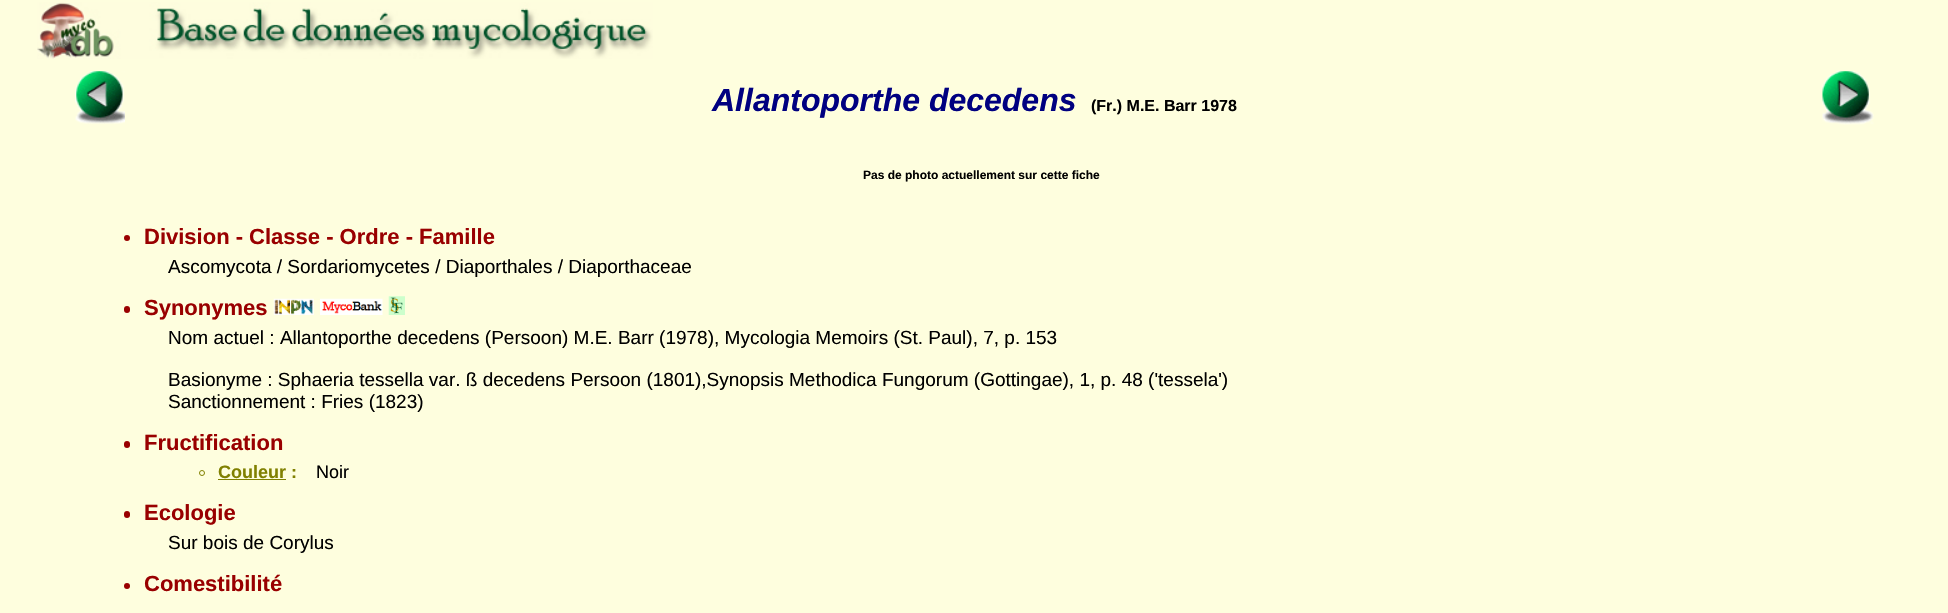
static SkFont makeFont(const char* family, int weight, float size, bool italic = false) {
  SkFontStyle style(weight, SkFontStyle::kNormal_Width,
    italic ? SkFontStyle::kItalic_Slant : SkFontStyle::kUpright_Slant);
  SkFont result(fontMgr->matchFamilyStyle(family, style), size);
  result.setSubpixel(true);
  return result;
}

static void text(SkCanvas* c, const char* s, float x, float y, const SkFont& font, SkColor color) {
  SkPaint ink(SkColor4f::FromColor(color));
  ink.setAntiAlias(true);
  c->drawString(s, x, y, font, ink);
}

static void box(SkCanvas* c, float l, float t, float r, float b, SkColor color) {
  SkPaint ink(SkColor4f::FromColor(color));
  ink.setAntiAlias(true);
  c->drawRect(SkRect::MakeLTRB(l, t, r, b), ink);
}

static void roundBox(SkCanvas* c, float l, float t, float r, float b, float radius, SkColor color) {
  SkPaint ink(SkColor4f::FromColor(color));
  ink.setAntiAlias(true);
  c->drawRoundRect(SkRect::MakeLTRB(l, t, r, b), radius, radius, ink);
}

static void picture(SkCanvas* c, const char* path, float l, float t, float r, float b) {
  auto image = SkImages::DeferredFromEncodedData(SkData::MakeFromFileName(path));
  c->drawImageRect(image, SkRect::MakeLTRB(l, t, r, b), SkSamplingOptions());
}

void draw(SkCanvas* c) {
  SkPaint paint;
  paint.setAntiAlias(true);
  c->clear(0xfffefede);
  picture(c, "img_01.png", 37, 2, 653, 59);
  picture(c, "img_02.png", 75, 71, 125, 124);
  SkFont face1 = makeFont("Liberation Sans", 700, 32, true);
  text(c, "Allantoporthe decedens", 712, 111, face1, 0xff000080);
  SkFont face2 = makeFont("Liberation Sans", 700, 16);
  text(c, "(Fr.) M.E. Barr 1978", 1091, 111, face2, 0xff000000);
  picture(c, "img_03.png", 1822, 71, 1874, 125);
  SkFont face3 = makeFont("Liberation Sans", 700, 12);
  text(c, "Pas de photo actuellement sur cette fiche", 863, 179, face3, 0xff000000);
  paint.setColor(0xff990000);
  c->drawCircle(127, 238, 3, paint);
  SkFont face4 = makeFont("Liberation Sans", 700, 22);
  text(c, "Division - Classe - Ordre - Famille", 144, 244, face4, 0xff990000);
  SkFont face5 = makeFont("Liberation Sans", 400, 19);
  text(c, "Ascomycota / Sordariomycetes / Diaporthales / Diaporthaceae", 168, 273, face5, 0xff000000);
  roundBox(c, 124, 306, 130, 313, 3, 0xff990000);
  text(c, "Synonymes", 144, 315, face4, 0xff990000);
  picture(c, "img_04.png", 273, 298, 314, 315);
  picture(c, "img_05.png", 320, 298, 383, 315);
  picture(c, "img_06.png", 388, 296, 405, 315);
  text(c, "Nom actuel : Allantoporthe decedens (Persoon) M.E. Barr (1978), Mycologia Memoirs (St. Paul), 7, p. 153", 168, 344, face5, 0xff000000);
  text(c, "Basionyme : Sphaeria tessella var. ß decedens Persoon (1801),Synopsis Methodica Fungorum (Gottingae), 1, p. 48 ('tessela')", 168, 386, face5, 0xff000000);
  text(c, "Sanctionnement : Fries (1823)", 168, 408, face5, 0xff000000);
  roundBox(c, 124, 441, 130, 448, 3, 0xff990000);
  text(c, "Fructification", 144, 450, face4, 0xff990000);
  paint.setStyle(SkPaint::kStroke_Style);
  paint.setStrokeWidth(1);
  paint.setColor(0xff808000);
  c->drawCircle(202, 473, 2.5f, paint);
  SkFont face6 = makeFont("Liberation Sans", 700, 18);
  text(c, "Couleur :", 218, 478, face6, 0xff808000);
  box(c, 218, 479, 286, 480, 0xff808000);
  SkFont face7 = makeFont("Liberation Sans", 400, 18);
  text(c, "Noir", 316, 478, face7, 0xff000000);
  roundBox(c, 124, 511, 130, 518, 3, 0xff990000);
  text(c, "Ecologie", 144, 520, face4, 0xff990000);
  text(c, "Sur bois de Corylus", 168, 549, face5, 0xff000000);
  paint.setStyle(SkPaint::kFill_Style);
  paint.setColor(0xff990000);
  c->drawCircle(127, 586, 3, paint);
  text(c, "Comestibilité", 144, 591, face4, 0xff990000);
}
